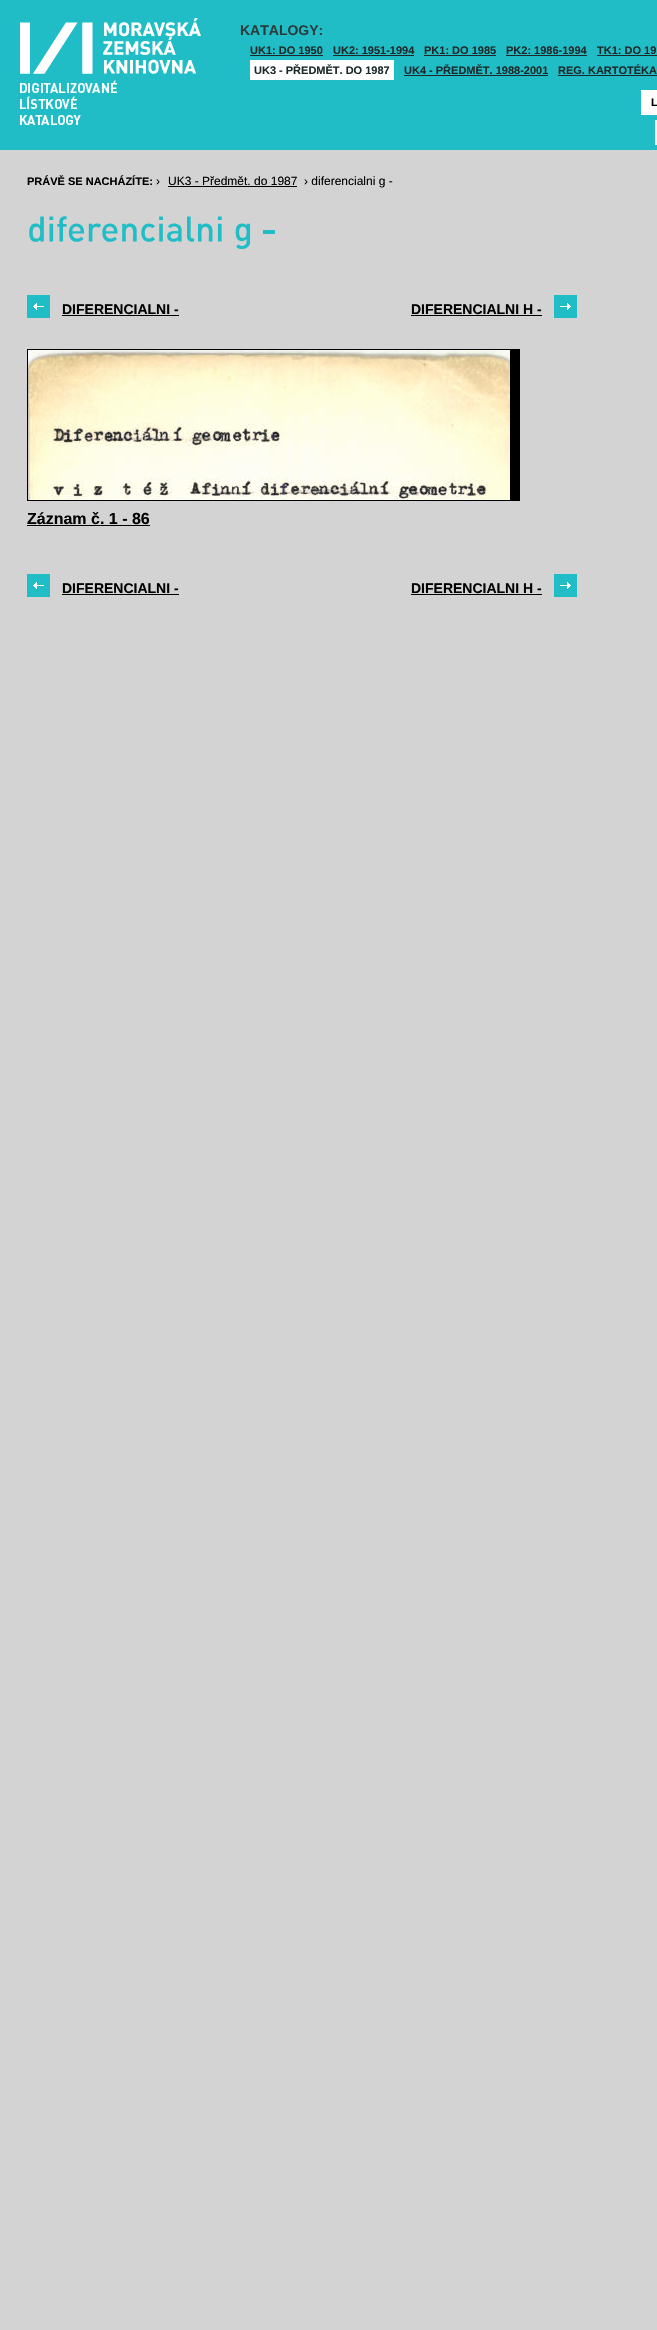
static SkFont makeFont(const char* family, int weight, float size, bool italic = false) {
  SkFontStyle style(weight, SkFontStyle::kNormal_Width,
    italic ? SkFontStyle::kItalic_Slant : SkFontStyle::kUpright_Slant);
  SkFont result(fontMgr->matchFamilyStyle(family, style), size);
  result.setSubpixel(true);
  return result;
}

static void text(SkCanvas* c, const char* s, float x, float y, const SkFont& font, SkColor color) {
  SkPaint ink(SkColor4f::FromColor(color));
  ink.setAntiAlias(true);
  c->drawString(s, x, y, font, ink);
}

static void box(SkCanvas* c, float l, float t, float r, float b, SkColor color) {
  SkPaint ink(SkColor4f::FromColor(color));
  ink.setAntiAlias(true);
  c->drawRect(SkRect::MakeLTRB(l, t, r, b), ink);
}

static void picture(SkCanvas* c, const char* path, float l, float t, float r, float b) {
  auto image = SkImages::DeferredFromEncodedData(SkData::MakeFromFileName(path));
  c->drawImageRect(image, SkRect::MakeLTRB(l, t, r, b), SkSamplingOptions());
}

void draw(SkCanvas* c) {
  SkPaint paint;
  paint.setAntiAlias(true);
  c->clear(0xffd3d3d3);
  box(c, 0, 0, 657, 150, 0xff21bdc6);
  picture(c, "img_01.png", 20, 18, 201, 125);
  SkFont face1 = makeFont("Liberation Sans", 700, 14);
  text(c, "KATALOGY:", 240, 35, face1, 0xff2a3c3d);
  SkFont face2 = makeFont("Liberation Sans", 700, 11);
  text(c, "UK1: DO 1950", 250, 54, face2, 0xff1c2829);
  box(c, 250, 55, 323, 56, 0xff1c2829);
  text(c, "UK2: 1951-1994", 333, 54, face2, 0xff1c2829);
  box(c, 333, 55, 414, 56, 0xff1c2829);
  text(c, "PK1: DO 1985", 424, 54, face2, 0xff1c2829);
  box(c, 424, 55, 496, 56, 0xff1c2829);
  text(c, "PK2: 1986-1994", 506, 54, face2, 0xff1c2829);
  box(c, 506, 55, 587, 56, 0xff1c2829);
  text(c, "TK1: DO 19", 597, 54, face2, 0xff1c2829);
  box(c, 597, 55, 657, 56, 0xff1c2829);
  box(c, 250, 60, 394, 80, 0xffffffff);
  text(c, "UK3 - PŘEDMĚT. DO 1987", 254, 74, face2, 0xff1c2829);
  text(c, "UK4 - PŘEDMĚT. 1988-2001", 404, 74, face2, 0xff1c2829);
  box(c, 404, 75, 548, 76, 0xff1c2829);
  text(c, "REG. KARTOTÉKA", 558, 74, face2, 0xff1c2829);
  box(c, 558, 75, 657, 76, 0xff1c2829);
  box(c, 641, 90, 657, 115, 0xffffffff);
  text(c, "L", 651, 106, face2, 0xff000000);
  box(c, 655, 120, 657, 145, 0xffffffff);
  text(c, "PRÁVĚ SE NACHÁZÍTE:", 27, 185, face2, 0xff000000);
  SkFont face3 = makeFont("Liberation Sans", 400, 12);
  text(c, "›", 156, 185, face3, 0xff000000);
  text(c, "UK3 - Předmět. do 1987", 168, 185, face3, 0xff000000);
  box(c, 168, 186, 297, 187, 0xff000000);
  text(c, "› diferencialni g -", 304, 185, face3, 0xff000000);
  picture(c, "img_02.png", 29, 216, 222, 242);
  picture(c, "img_03.png", 235, 223, 251, 249);
  box(c, 263, 230, 275, 234, 0xff21bdc6);
  picture(c, "img_04.png", 27, 295, 50, 318);
  text(c, "DIFERENCIALNI -", 62, 314, face1, 0xff000000);
  box(c, 62, 315, 179, 316, 0xff000000);
  picture(c, "img_05.png", 554, 295, 577, 318);
  text(c, "DIFERENCIALNI H -", 411, 314, face1, 0xff000000);
  box(c, 411, 315, 542, 316, 0xff000000);
  box(c, 27, 349, 520, 501, 0xff000000);
  picture(c, "img_06.png", 28, 350, 510, 500);
  SkFont face4 = makeFont("Liberation Sans", 700, 16);
  text(c, "Záznam č. 1 - 86", 27, 524, face4, 0xff000000);
  box(c, 27, 525, 150, 526, 0xff000000);
  picture(c, "img_04.png", 27, 574, 50, 597);
  text(c, "DIFERENCIALNI -", 62, 593, face1, 0xff000000);
  box(c, 62, 594, 179, 595, 0xff000000);
  picture(c, "img_05.png", 554, 574, 577, 597);
  text(c, "DIFERENCIALNI H -", 411, 593, face1, 0xff000000);
  box(c, 411, 594, 542, 595, 0xff000000);
}
